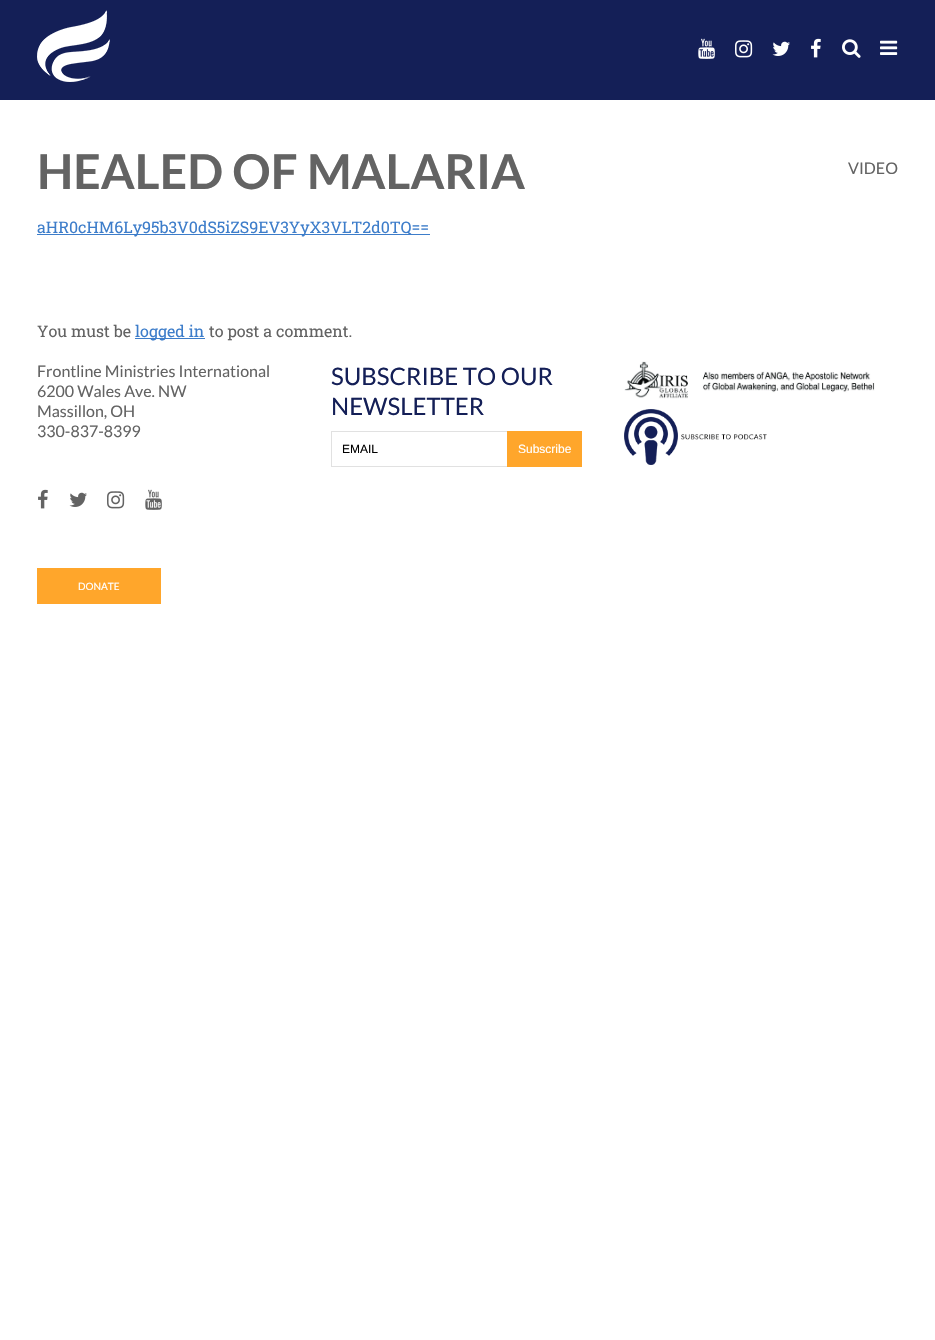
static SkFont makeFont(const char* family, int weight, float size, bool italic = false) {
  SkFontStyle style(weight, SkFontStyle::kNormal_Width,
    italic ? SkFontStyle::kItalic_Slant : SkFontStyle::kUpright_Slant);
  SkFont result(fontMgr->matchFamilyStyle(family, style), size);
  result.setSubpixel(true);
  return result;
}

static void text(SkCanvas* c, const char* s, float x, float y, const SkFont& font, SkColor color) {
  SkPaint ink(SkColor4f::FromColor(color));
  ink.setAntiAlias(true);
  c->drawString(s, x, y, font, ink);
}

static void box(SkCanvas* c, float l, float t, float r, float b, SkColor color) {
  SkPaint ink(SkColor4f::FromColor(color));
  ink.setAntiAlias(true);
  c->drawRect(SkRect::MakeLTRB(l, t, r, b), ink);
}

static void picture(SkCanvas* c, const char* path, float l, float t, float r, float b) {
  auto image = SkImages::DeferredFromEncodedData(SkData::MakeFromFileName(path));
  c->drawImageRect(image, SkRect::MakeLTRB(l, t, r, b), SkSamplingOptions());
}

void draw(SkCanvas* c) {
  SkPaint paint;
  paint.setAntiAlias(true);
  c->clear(0xffffffff);
  box(c, 0, 0, 935, 100, 0xff141f57);
  picture(c, "img_01.png", 37, 10, 110, 82);
  picture(c, "img_02.png", 698, 38, 715, 59);
  picture(c, "img_03.png", 735, 40, 753, 58);
  picture(c, "img_04.png", 772, 41, 790, 56);
  picture(c, "img_05.png", 811, 38, 821, 58);
  picture(c, "img_06.png", 842, 39, 861, 58);
  picture(c, "img_07.png", 880, 40, 898, 55);
  SkFont face1 = makeFont("Lato", 700, 48);
  text(c, "HEALED OF MALARIA", 37, 189, face1, 0xff636363);
  SkFont face2 = makeFont("Lato", 400, 16);
  text(c, "VIDEO", 848, 174, face2, 0xff636363);
  box(c, 37, 234, 430, 235, 0xff3d7dca);
  SkFont face3 = makeFont("Roboto Slab", 400, 16);
  text(c, "aHR0cHM6Ly95b3V0dS5iZS9EV3YyX3VLT2d0TQ==", 37, 233, face3, 0xff3d7dca);
  text(c, "You must be", 37, 337, face3, 0xff636363);
  box(c, 135, 338, 205, 339, 0xff3d7dca);
  text(c, "logged in", 135, 337, face3, 0xff3d7dca);
  text(c, "to post a comment.", 209, 337, face3, 0xff636363);
  text(c, "Frontline Ministries International", 37, 377, face2, 0xff636363);
  text(c, "6200 Wales Ave. NW", 37, 397, face2, 0xff636363);
  text(c, "Massillon, OH", 37, 417, face2, 0xff636363);
  text(c, "330-837-8399", 37, 437, face2, 0xff636363);
  picture(c, "img_08.png", 38, 489, 48, 509);
  picture(c, "img_09.png", 69, 492, 87, 507);
  picture(c, "img_10.png", 107, 491, 125, 509);
  picture(c, "img_11.png", 145, 489, 162, 510);
  box(c, 37, 568, 161, 604, 0xffffa62b);
  SkFont face4 = makeFont("Lato", 400, 10);
  text(c, "DONATE", 78, 590, face4, 0xffffffff);
  SkFont face5 = makeFont("Lato", 400, 24);
  text(c, "SUBSCRIBE TO OUR", 331, 385, face5, 0xff141f57);
  text(c, "NEWSLETTER", 331, 415, face5, 0xff141f57);
  paint.setStyle(SkPaint::kStroke_Style);
  paint.setStrokeWidth(1);
  paint.setColor(0xffe1e1e1);
  c->drawRect(SkRect::MakeLTRB(331.5f, 431.5f, 507.5f, 466.5f), paint);
  SkFont face6 = makeFont("Liberation Sans", 400, 12);
  text(c, "EMAIL", 342, 453, face6, 0xff000000);
  box(c, 507, 431, 582, 467, 0xffffa62b);
  text(c, "Subscribe", 518, 453, face6, 0xffffffff);
  picture(c, "img_12.png", 624, 361, 875, 399);
  picture(c, "img_13.png", 624, 409, 767, 465);
}
